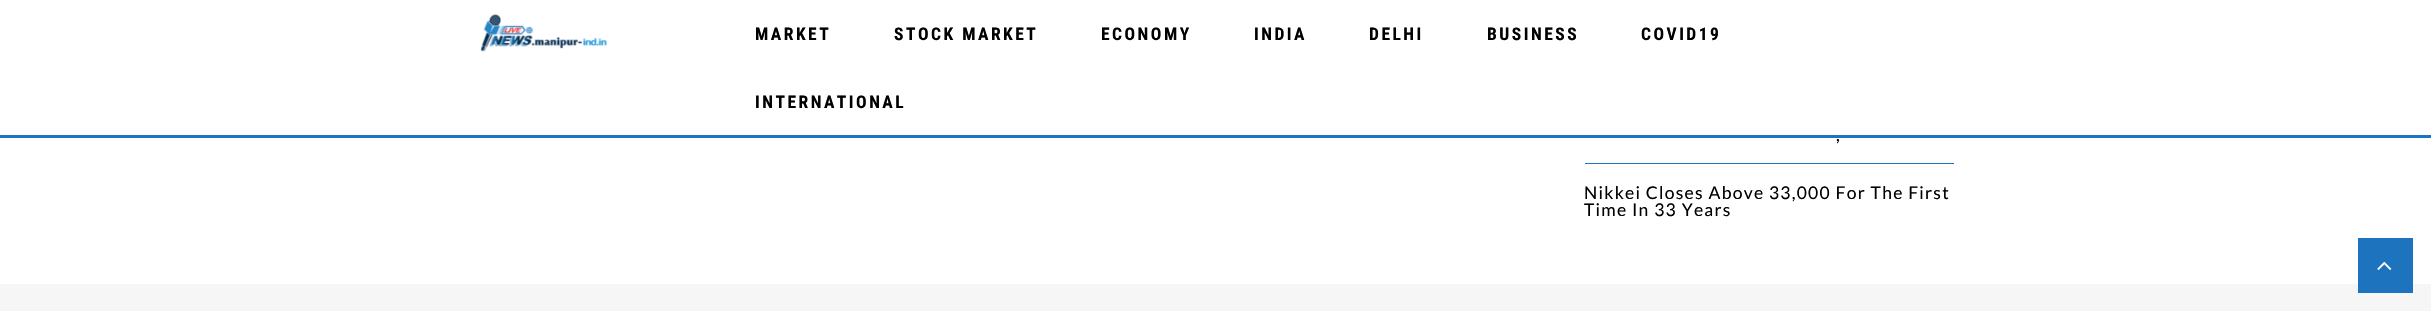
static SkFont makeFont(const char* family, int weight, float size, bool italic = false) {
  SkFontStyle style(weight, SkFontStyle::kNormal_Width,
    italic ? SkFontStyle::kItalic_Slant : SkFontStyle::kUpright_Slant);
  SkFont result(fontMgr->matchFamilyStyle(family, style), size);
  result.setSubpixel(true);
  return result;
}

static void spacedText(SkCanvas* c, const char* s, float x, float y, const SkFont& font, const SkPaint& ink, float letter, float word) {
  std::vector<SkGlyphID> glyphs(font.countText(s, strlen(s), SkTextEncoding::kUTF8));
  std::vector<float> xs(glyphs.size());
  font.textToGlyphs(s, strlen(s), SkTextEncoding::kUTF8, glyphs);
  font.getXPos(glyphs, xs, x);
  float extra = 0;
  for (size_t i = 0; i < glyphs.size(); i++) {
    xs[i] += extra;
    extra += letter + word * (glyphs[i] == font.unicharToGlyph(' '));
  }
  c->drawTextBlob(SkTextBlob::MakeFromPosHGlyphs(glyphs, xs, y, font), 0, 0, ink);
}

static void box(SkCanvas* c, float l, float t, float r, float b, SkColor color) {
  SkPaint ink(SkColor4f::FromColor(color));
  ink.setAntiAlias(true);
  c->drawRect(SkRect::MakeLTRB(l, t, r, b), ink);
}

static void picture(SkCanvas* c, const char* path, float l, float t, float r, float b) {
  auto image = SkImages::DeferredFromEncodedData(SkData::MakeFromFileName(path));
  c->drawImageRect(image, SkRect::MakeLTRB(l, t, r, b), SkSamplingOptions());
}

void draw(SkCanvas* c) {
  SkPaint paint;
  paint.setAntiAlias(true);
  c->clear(0xffffffff);
  box(c, 0, 135, 2431, 138, 0xff1e73be);
  picture(c, "img_01.png", 480, 14, 607, 52);
  SkFont face1 = makeFont("Roboto Condensed", 700, 17.5f);
  paint.setColor(0xff000000);
  spacedText(c, "MARKET", 755, 40, face1, paint, 2.5f, 0);
  spacedText(c, "STOCK MARKET", 894, 40, face1, paint, 2.5f, 0);
  spacedText(c, "ECONOMY", 1101, 40, face1, paint, 2.5f, 0);
  spacedText(c, "INDIA", 1254, 40, face1, paint, 2.5f, 0);
  spacedText(c, "DELHI", 1369, 40, face1, paint, 2.5f, 0);
  spacedText(c, "BUSINESS", 1487, 40, face1, paint, 2.5f, 0);
  spacedText(c, "COVID19", 1641, 40, face1, paint, 2.5f, 0);
  spacedText(c, "INTERNATIONAL", 755, 108, face1, paint, 2.5f, 0);
  box(c, 1585, 163, 1954, 164, 0xff1e73be);
  SkFont face2 = makeFont("Lato", 400, 17.5f);
  spacedText(c, ",", 1836, 141, face2, paint, 1.25f, 0);
  spacedText(c, "Nikkei Closes Above 33,000 For The First", 1584, 199, face2, paint, 1.25f, 0);
  spacedText(c, "Time In 33 Years", 1584, 216, face2, paint, 1.25f, 0);
  box(c, 0, 284, 2431, 311, 0xfff6f6f6);
  box(c, 2358, 238, 2413, 293, 0xff1e73be);
  picture(c, "img_02.png", 2377, 261, 2392, 270);
}
